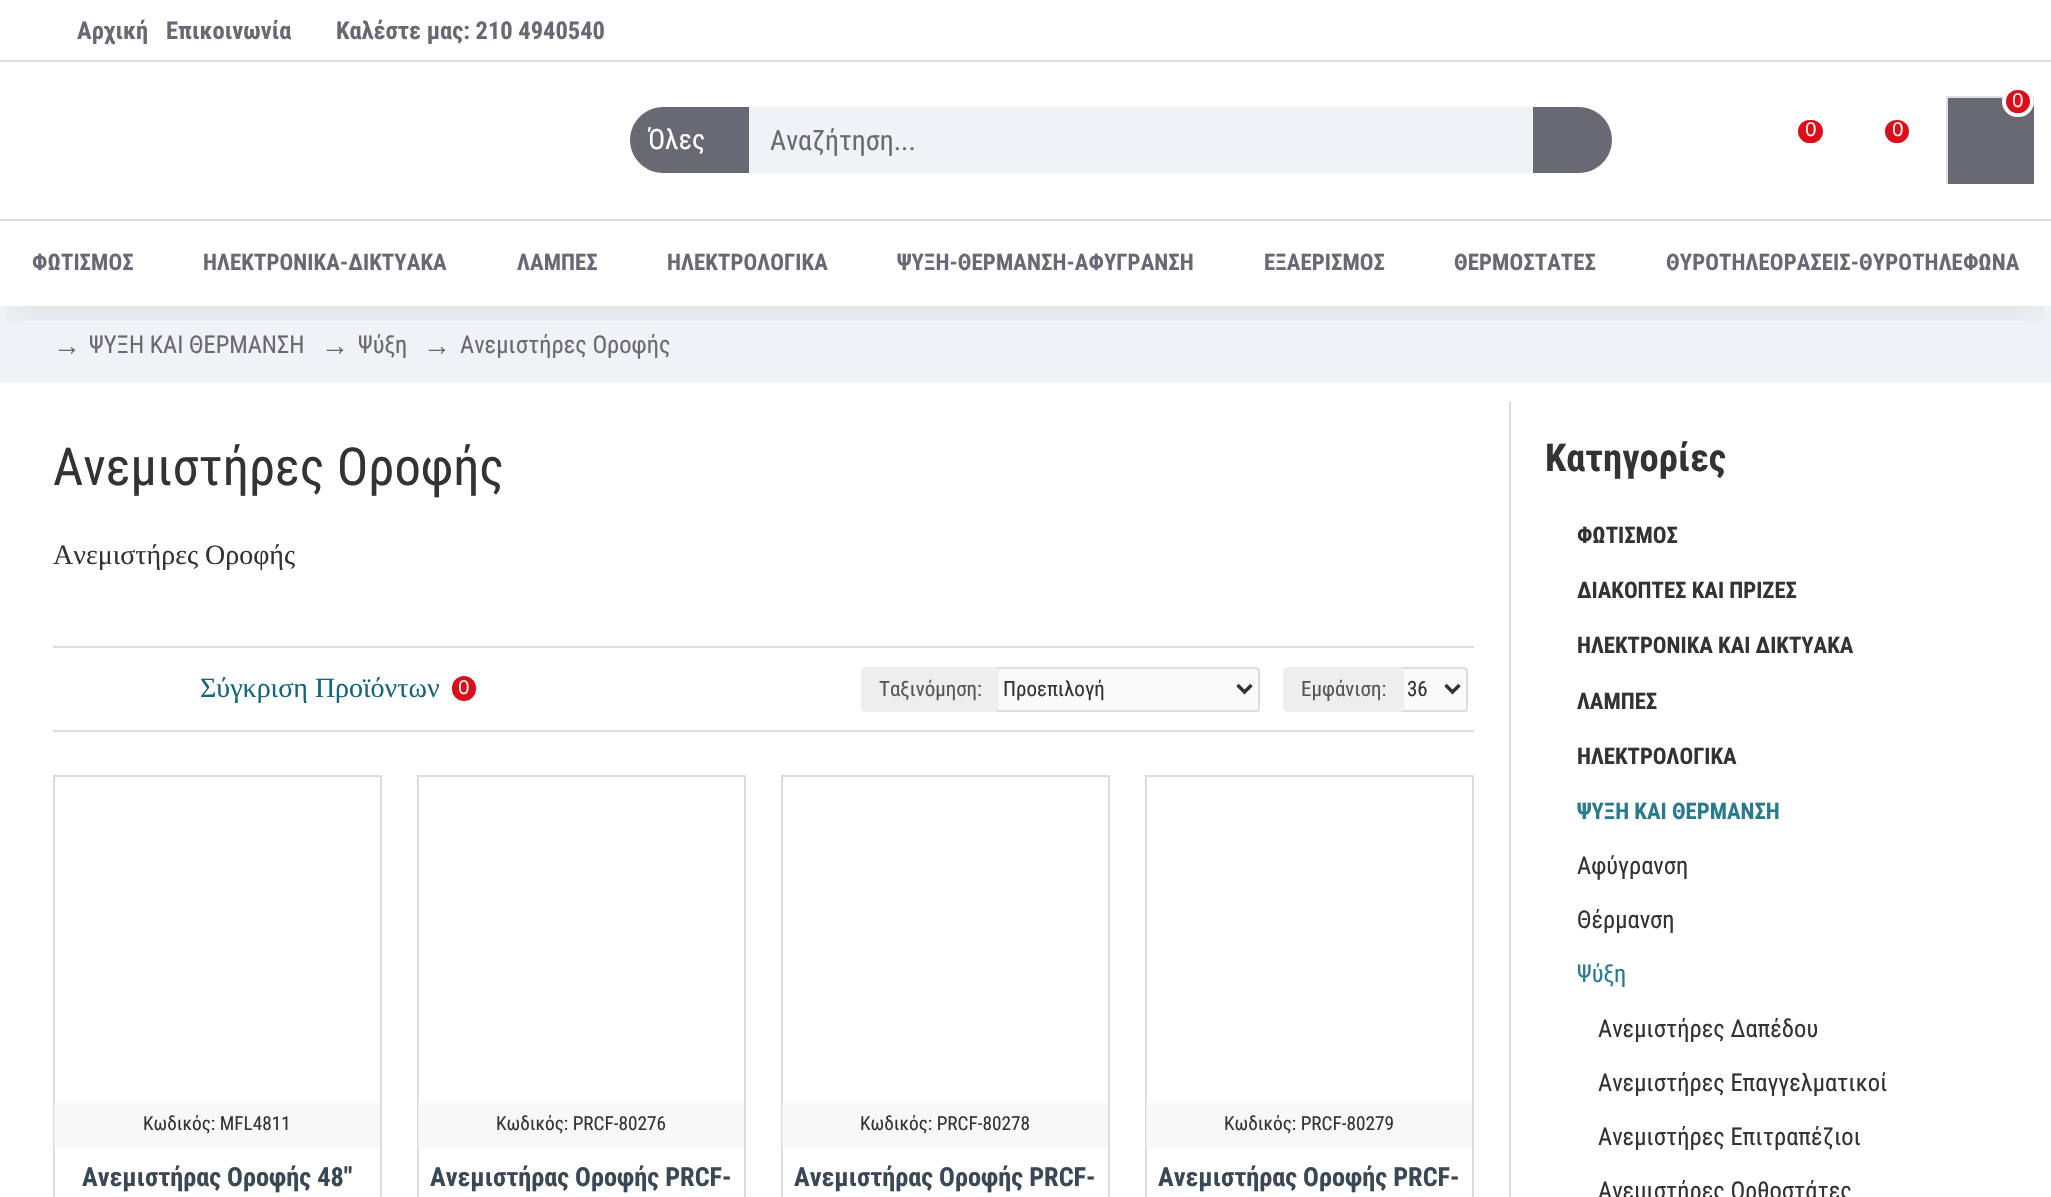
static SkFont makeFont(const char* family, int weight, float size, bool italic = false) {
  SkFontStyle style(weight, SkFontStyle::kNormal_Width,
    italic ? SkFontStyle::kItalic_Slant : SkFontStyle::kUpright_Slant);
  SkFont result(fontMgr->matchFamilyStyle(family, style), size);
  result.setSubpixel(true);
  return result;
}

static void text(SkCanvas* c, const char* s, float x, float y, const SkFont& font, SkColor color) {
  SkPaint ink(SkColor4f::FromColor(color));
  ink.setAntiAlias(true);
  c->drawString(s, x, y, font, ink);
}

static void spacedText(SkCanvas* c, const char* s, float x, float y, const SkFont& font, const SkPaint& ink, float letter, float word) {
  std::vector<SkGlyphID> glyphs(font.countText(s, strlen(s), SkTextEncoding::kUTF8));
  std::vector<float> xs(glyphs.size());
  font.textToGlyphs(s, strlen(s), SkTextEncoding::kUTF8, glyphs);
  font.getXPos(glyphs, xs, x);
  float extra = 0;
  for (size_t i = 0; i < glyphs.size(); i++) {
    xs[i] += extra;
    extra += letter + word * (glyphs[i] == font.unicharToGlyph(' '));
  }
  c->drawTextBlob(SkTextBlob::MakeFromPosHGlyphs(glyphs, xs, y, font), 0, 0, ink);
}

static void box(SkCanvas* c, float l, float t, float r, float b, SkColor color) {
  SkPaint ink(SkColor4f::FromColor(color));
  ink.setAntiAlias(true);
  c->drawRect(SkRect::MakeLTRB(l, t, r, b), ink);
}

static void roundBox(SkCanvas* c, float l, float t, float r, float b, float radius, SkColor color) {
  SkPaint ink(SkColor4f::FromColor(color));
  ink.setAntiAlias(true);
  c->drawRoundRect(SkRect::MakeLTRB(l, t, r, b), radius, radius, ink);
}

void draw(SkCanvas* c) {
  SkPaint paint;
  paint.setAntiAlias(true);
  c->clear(0xffffffff);
  box(c, 0, 306, 2051, 383, 0xfff0f2f5);
  c->save();
  c->clipRect(SkRect::MakeLTRB(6, 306, 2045, 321));
  paint.setColor(0x1a000000);
  paint.setMaskFilter(SkMaskFilter::MakeBlur(kNormal_SkBlurStyle, 17.5f));
  c->drawRect(SkRect::MakeLTRB(9, 18, 2042, 306), paint);
  paint.setMaskFilter(nullptr);
  c->restore();
  SkFont face1 = makeFont("Roboto Condensed", 700, 24.5f);
  text(c, "Αρχική", 77, 39, face1, 0xff696973);
  text(c, "Επικοινωνία", 166, 39, face1, 0xff696973);
  text(c, "Καλέστε μας: 210 4940540", 336, 39, face1, 0xff696973);
  box(c, 1946, 96, 2034, 98, 0xffdddddd);
  box(c, 1946, 96, 1948, 184, 0xffdddddd);
  box(c, 1948, 98, 2034, 184, 0xff696973);
  paint.setColor(0xffdd0e1c);
  c->drawRoundRect(SkRect::MakeLTRB(2004, 88, 2032, 115), 13.5f, 13.5f, paint);
  paint.setStyle(SkPaint::kStroke_Style);
  paint.setStrokeWidth(4);
  paint.setColor(0xffffffff);
  c->drawRoundRect(SkRect::MakeLTRB(2004, 88, 2032, 115), 13.5f, 13.5f, paint);
  SkFont face2 = makeFont("Nunito Sans", 400, 19.25f);
  text(c, "0", 2012, 107, face2, 0xffffffff);
  paint.setStyle(SkPaint::kFill_Style);
  paint.setColor(0xffdd0e1c);
  c->drawRoundRect(SkRect::MakeLTRB(1796, 118, 1825, 145), 13.5f, 13.5f, paint);
  paint.setStyle(SkPaint::kStroke_Style);
  paint.setColor(0xffffffff);
  c->drawRoundRect(SkRect::MakeLTRB(1796, 118, 1825, 145), 13.5f, 13.5f, paint);
  text(c, "0", 1805, 136, face2, 0xffffffff);
  paint.setStyle(SkPaint::kFill_Style);
  paint.setColor(0xffdd0e1c);
  c->drawRoundRect(SkRect::MakeLTRB(1883, 118, 1911, 145), 13.5f, 13.5f, paint);
  paint.setStyle(SkPaint::kStroke_Style);
  paint.setColor(0xffffffff);
  c->drawRoundRect(SkRect::MakeLTRB(1883, 118, 1911, 145), 13.5f, 13.5f, paint);
  text(c, "0", 1892, 136, face2, 0xffffffff);
  paint.setStyle(SkPaint::kFill_Style);
  paint.setColor(0xff696973);
  c->drawPath(SkPathBuilder().moveTo(663, 107).lineTo(749, 107).lineTo(749, 173).lineTo(663, 173).cubicTo(645, 173, 630, 158, 630, 140).cubicTo(630, 122, 645, 107, 663, 107).close().detach(), paint);
  SkFont face3 = makeFont("Roboto Condensed", 400, 28);
  text(c, "Όλες", 648, 149, face3, 0xffffffff);
  box(c, 749, 107, 1533, 173, 0xfff0f2f5);
  text(c, "Αναζήτηση...", 770, 150, face3, 0xff696973);
  c->drawPath(SkPathBuilder().moveTo(1533, 107).lineTo(1579, 107).cubicTo(1597, 107, 1612, 122, 1612, 140).cubicTo(1612, 158, 1597, 173, 1579, 173).lineTo(1533, 173).close().detach(), paint);
  box(c, 0, 219, 2051, 221, 0xffdddddd);
  SkFont face4 = makeFont("Roboto Condensed", 700, 22.75f);
  spacedText(c, "ΦΩΤΙΣΜΟΣ", 32, 270, face4, paint, 0.1f, 0);
  spacedText(c, "ΗΛΕΚΤΡΟΝΙΚΑ-ΔΙΚΤΥΑΚΑ", 203, 270, face4, paint, 0.1f, 0);
  spacedText(c, "ΛΑΜΠΕΣ", 517, 270, face4, paint, 0.1f, 0);
  spacedText(c, "ΗΛΕΚΤΡΟΛΟΓΙΚΑ", 667, 270, face4, paint, 0.1f, 0);
  spacedText(c, "ΨΥΞΗ-ΘΕΡΜΑΝΣΗ-ΑΦΥΓΡΑΝΣΗ", 897, 270, face4, paint, 0.1f, 0);
  spacedText(c, "ΕΞΑΕΡΙΣΜΟΣ", 1264, 270, face4, paint, 0.1f, 0);
  spacedText(c, "ΘΕΡΜΟΣΤΑΤΕΣ", 1454, 270, face4, paint, 0.1f, 0);
  spacedText(c, "ΘΥΡΟΤΗΛΕΟΡΑΣΕΙΣ-ΘΥΡΟΤΗΛΕΦΩΝΑ", 1666, 270, face4, paint, 0.1f, 0);
  box(c, 0, 60, 2051, 62, 0xffdddddd);
  SkFont face5 = makeFont("Liberation Serif", 400, 28);
  text(c, "→", 53, 355, face5, 0xff696973);
  SkFont face6 = makeFont("Roboto Condensed", 400, 24.5f);
  text(c, "ΨΥΞΗ ΚΑΙ ΘΕΡΜΑΝΣΗ", 89, 353, face6, 0xff696973);
  text(c, "→", 321, 355, face5, 0xff696973);
  text(c, "Ψύξη", 358, 353, face6, 0xff696973);
  text(c, "→", 423, 355, face5, 0xff696973);
  text(c, "Ανεμιστήρες Οροφής", 460, 353, face6, 0xff696973);
  SkFont face7 = makeFont("Roboto Condensed", 400, 52.5f);
  text(c, "Ανεμιστήρες Οροφής", 53, 485, face7, 0xff333333);
  text(c, "Ανεμιστήρες Οροφής", 53, 564, face5, 0xff333333);
  box(c, 53, 646, 1474, 648, 0xffdddddd);
  box(c, 53, 730, 1474, 732, 0xffdddddd);
  text(c, "Σύγκριση Προϊόντων", 200, 697, face5, 0xff146678);
  paint.setColor(0xffdd0e1c);
  c->drawRoundRect(SkRect::MakeLTRB(450, 674, 478, 703), 14, 14, paint);
  paint.setStyle(SkPaint::kStroke_Style);
  paint.setColor(0xffffffff);
  c->drawRoundRect(SkRect::MakeLTRB(450, 674, 478, 703), 14, 14, paint);
  text(c, "0", 458, 694, face2, 0xffffffff);
  paint.setStyle(SkPaint::kFill_Style);
  paint.setColor(0xfffafafa);
  c->drawRoundRect(SkRect::MakeLTRB(995, 668, 1259, 711), 3, 3, paint);
  paint.setStyle(SkPaint::kStroke_Style);
  paint.setStrokeWidth(2);
  paint.setColor(0xffdddddd);
  c->drawRoundRect(SkRect::MakeLTRB(995, 668, 1259, 711), 3, 3, paint);
  roundBox(c, 861, 667, 999, 712, 5, 0xffeeeeee);
  SkFont face8 = makeFont("Roboto Condensed", 400, 21);
  text(c, "Ταξινόμηση:", 879, 696, face8, 0xff555555);
  paint.setStrokeWidth(3.5f);
  paint.setColor(0xff333333);
  c->drawPath(SkPathBuilder().moveTo(1237.5f, 685).lineTo(1244.5f, 692).lineTo(1251.5f, 685).detach(), paint);
  text(c, "Προεπιλογή", 1003, 696, face8, 0xff333333);
  paint.setStyle(SkPaint::kFill_Style);
  paint.setColor(0xfffafafa);
  c->drawRoundRect(SkRect::MakeLTRB(1399, 668, 1467, 711), 3, 3, paint);
  paint.setStyle(SkPaint::kStroke_Style);
  paint.setStrokeWidth(2);
  paint.setColor(0xffdddddd);
  c->drawRoundRect(SkRect::MakeLTRB(1399, 668, 1467, 711), 3, 3, paint);
  roundBox(c, 1283, 667, 1404, 712, 5, 0xffeeeeee);
  text(c, "Εμφάνιση:", 1301, 696, face8, 0xff555555);
  paint.setStrokeWidth(3.5f);
  paint.setColor(0xff333333);
  c->drawPath(SkPathBuilder().moveTo(1445.5f, 685).lineTo(1452.5f, 692).lineTo(1459.5f, 685).detach(), paint);
  text(c, "36", 1407, 696, face8, 0xff333333);
  paint.setStrokeWidth(2);
  paint.setColor(0xffdddddd);
  c->drawRect(SkRect::MakeLTRB(54, 776, 381, 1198), paint);
  box(c, 54, 1103, 380, 1148, 0xb3f7f5f5);
  SkFont face9 = makeFont("Roboto Condensed", 400, 19.25f);
  text(c, "Κωδικός: MFL4811", 143, 1130, face9, 0xff333333);
  SkFont face10 = makeFont("Roboto Condensed", 700, 26.25f);
  text(c, "Ανεμιστήρας Οροφής 48''", 82, 1186, face10, 0xff3a4754);
  c->drawRect(SkRect::MakeLTRB(418, 776, 745, 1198), paint);
  box(c, 418, 1103, 744, 1148, 0xb3f7f5f5);
  text(c, "Κωδικός: PRCF-80276", 496, 1130, face9, 0xff333333);
  text(c, "Ανεμιστήρας Οροφής PRCF-", 430, 1186, face10, 0xff3a4754);
  c->drawRect(SkRect::MakeLTRB(782, 776, 1109, 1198), paint);
  box(c, 782, 1103, 1108, 1148, 0xb3f7f5f5);
  text(c, "Κωδικός: PRCF-80278", 860, 1130, face9, 0xff333333);
  text(c, "Ανεμιστήρας Οροφής PRCF-", 794, 1186, face10, 0xff3a4754);
  c->drawRect(SkRect::MakeLTRB(1146, 776, 1473, 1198), paint);
  box(c, 1146, 1103, 1472, 1148, 0xb3f7f5f5);
  text(c, "Κωδικός: PRCF-80279", 1224, 1130, face9, 0xff333333);
  text(c, "Ανεμιστήρας Οροφής PRCF-", 1158, 1186, face10, 0xff3a4754);
  box(c, 1509, 401, 1511, 1197, 0xffdddddd);
  SkFont face11 = makeFont("Roboto Condensed", 700, 38.5f);
  text(c, "Κατηγορίες", 1545, 471, face11, 0xff333333);
  text(c, "ΦΩΤΙΣΜΟΣ", 1577, 543, face4, 0xff333333);
  text(c, "ΔΙΑΚΟΠΤΕΣ ΚΑΙ ΠΡΙΖΕΣ", 1577, 598, face4, 0xff333333);
  text(c, "ΗΛΕΚΤΡΟΝΙΚΑ ΚΑΙ ΔΙΚΤΥΑΚΑ", 1577, 653, face4, 0xff333333);
  text(c, "ΛΑΜΠΕΣ", 1577, 709, face4, 0xff333333);
  text(c, "ΗΛΕΚΤΡΟΛΟΓΙΚΑ", 1577, 764, face4, 0xff333333);
  text(c, "ΨΥΞΗ ΚΑΙ ΘΕΡΜΑΝΣΗ", 1577, 819, face4, 0xff277b8c);
  text(c, "Αφύγρανση", 1577, 874, face6, 0xff333333);
  text(c, "Θέρμανση", 1577, 928, face6, 0xff333333);
  text(c, "Ψύξη", 1577, 982, face6, 0xff277b8c);
  text(c, "Ανεμιστήρες Δαπέδου", 1598, 1037, face6, 0xff333333);
  text(c, "Ανεμιστήρες Επαγγελματικοί", 1598, 1091, face6, 0xff333333);
  text(c, "Ανεμιστήρες Επιτραπέζιοι", 1598, 1145, face6, 0xff333333);
  text(c, "Ανεμιστήρες Ορθοστάτες", 1598, 1199, face6, 0xff333333);
}
